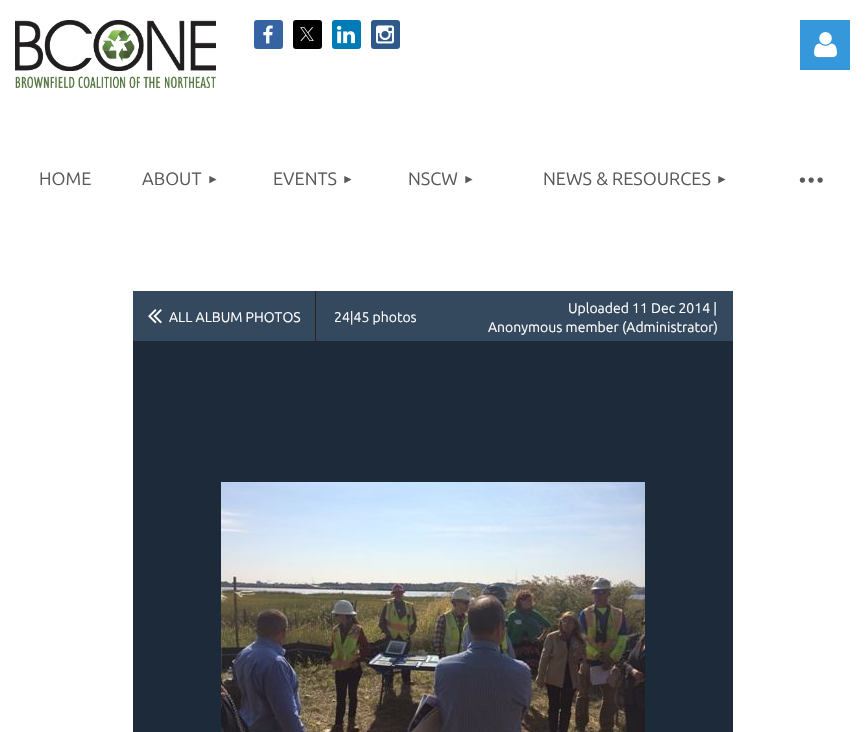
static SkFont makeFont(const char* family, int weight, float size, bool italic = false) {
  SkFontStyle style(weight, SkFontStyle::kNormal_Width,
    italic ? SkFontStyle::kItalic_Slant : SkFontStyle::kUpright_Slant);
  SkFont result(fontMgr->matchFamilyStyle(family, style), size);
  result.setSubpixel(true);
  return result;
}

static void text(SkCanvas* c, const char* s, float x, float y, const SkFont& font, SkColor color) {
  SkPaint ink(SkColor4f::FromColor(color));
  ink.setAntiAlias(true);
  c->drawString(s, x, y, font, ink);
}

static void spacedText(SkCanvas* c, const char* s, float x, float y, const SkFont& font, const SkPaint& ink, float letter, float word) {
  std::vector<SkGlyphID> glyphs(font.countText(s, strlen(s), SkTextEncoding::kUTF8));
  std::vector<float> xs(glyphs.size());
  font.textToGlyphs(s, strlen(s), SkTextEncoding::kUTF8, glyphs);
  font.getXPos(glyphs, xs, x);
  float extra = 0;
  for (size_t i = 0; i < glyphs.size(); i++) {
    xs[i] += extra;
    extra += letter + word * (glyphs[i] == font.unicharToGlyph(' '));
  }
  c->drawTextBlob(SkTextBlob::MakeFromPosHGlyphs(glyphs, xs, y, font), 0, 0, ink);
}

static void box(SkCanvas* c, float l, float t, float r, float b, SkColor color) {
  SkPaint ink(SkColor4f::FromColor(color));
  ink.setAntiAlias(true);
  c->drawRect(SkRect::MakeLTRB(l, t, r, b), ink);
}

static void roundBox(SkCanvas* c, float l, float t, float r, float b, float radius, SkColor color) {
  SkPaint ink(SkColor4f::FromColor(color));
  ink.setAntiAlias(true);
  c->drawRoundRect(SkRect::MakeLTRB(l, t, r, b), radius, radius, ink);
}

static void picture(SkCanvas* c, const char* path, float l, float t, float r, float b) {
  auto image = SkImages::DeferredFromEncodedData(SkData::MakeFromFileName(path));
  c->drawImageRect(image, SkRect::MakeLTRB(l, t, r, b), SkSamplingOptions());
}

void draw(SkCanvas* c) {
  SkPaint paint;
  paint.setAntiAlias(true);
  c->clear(0xffffffff);
  picture(c, "img_01.png", 15, 20, 216, 88);
  roundBox(c, 254, 20, 283, 49, 3, 0xff3664a2);
  picture(c, "img_02.png", 263, 25, 273, 44);
  roundBox(c, 293, 20, 322, 49, 3, 0xff000000);
  picture(c, "img_03.png", 300, 27, 314, 41);
  roundBox(c, 332, 20, 361, 49, 3, 0xff007bb6);
  picture(c, "img_04.png", 337, 25, 355, 44);
  roundBox(c, 371, 20, 400, 49, 3, 0xff2f598a);
  picture(c, "img_05.png", 376, 25, 394, 44);
  box(c, 800, 20, 850, 70, 0xff3498db);
  picture(c, "img_06.png", 814, 32, 837, 58);
  SkFont face1 = makeFont("Ubuntu", 400, 18);
  text(c, "HOME", 39, 185, face1, 0xff58595b);
  text(c, "ABOUT", 142, 185, face1, 0xff58595b);
  SkFont face2 = makeFont("Liberation Sans", 400, 12);
  text(c, "►", 207, 183, face2, 0xff58595b);
  text(c, "EVENTS", 273, 185, face1, 0xff58595b);
  text(c, "►", 342, 183, face2, 0xff58595b);
  text(c, "NSCW", 408, 185, face1, 0xff58595b);
  text(c, "►", 463, 183, face2, 0xff58595b);
  text(c, "NEWS & RESOURCES", 543, 185, face1, 0xff58595b);
  text(c, "►", 716, 183, face2, 0xff58595b);
  SkFont face3 = makeFont("Ubuntu", 400, 44);
  paint.setColor(0xff58595b);
  spacedText(c, "···", 797, 193, face3, paint, -2, 0);
  box(c, 133, 291, 733, 341, 0xff34495e);
  box(c, 315, 291, 316, 341, 0xff292222);
  picture(c, "img_07.png", 148, 309, 162, 324);
  SkFont face4 = makeFont("Ubuntu", 400, 14);
  text(c, "ALL ALBUM PHOTOS", 169, 322, face4, 0xffffffff);
  text(c, "24|45 photos", 334, 322, face4, 0xffffffff);
  text(c, "Uploaded 11 Dec 2014 |", 568, 313, face4, 0xffffffff);
  text(c, "Anonymous member (Administrator)", 488, 332, face4, 0xffffffff);
  box(c, 133, 341, 733, 732, 0xff1c2a39);
  picture(c, "img_08.png", 221, 482, 645, 732);
}
